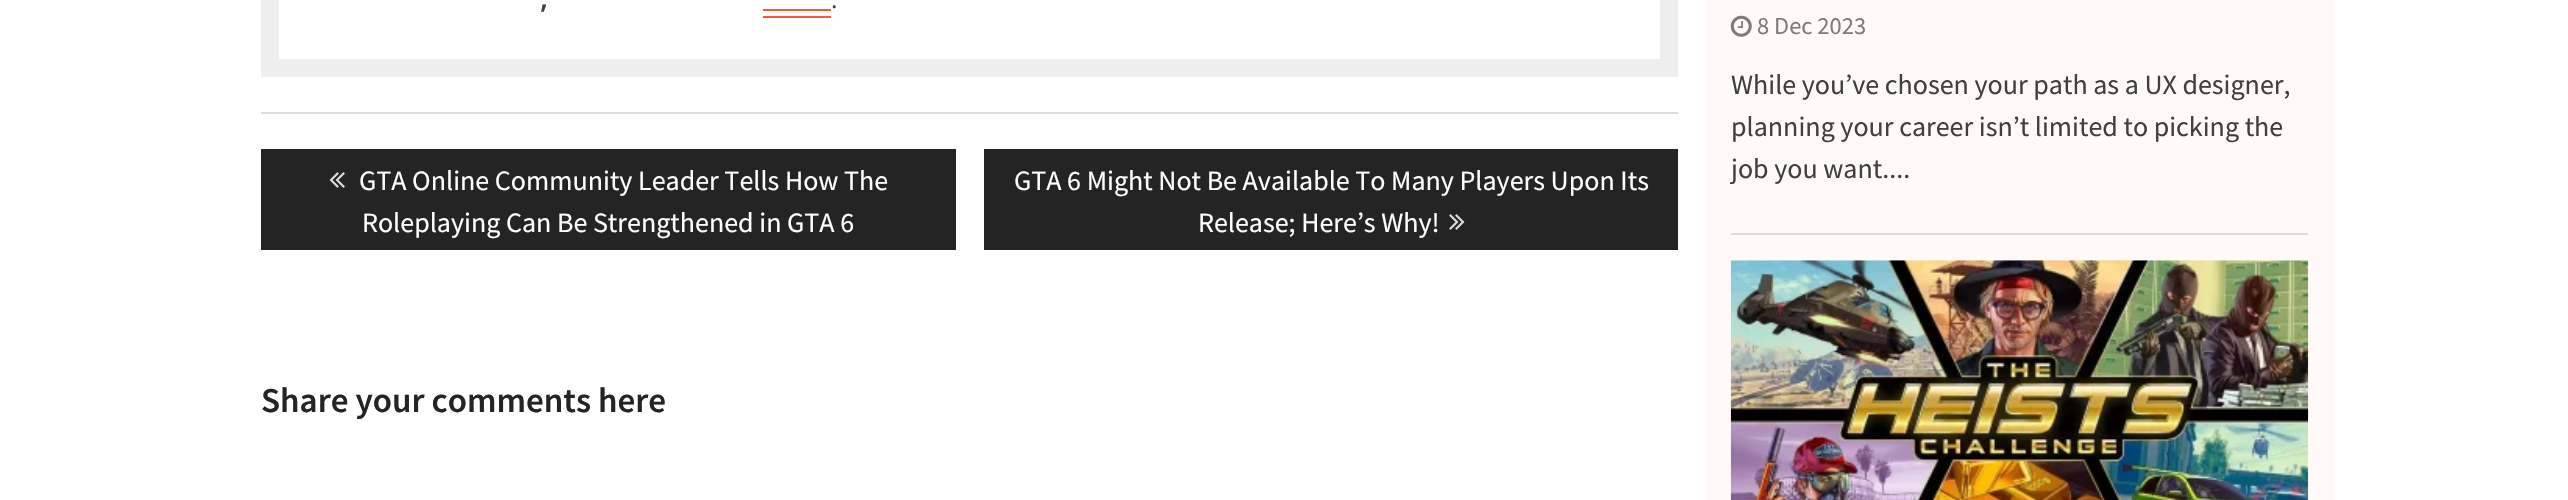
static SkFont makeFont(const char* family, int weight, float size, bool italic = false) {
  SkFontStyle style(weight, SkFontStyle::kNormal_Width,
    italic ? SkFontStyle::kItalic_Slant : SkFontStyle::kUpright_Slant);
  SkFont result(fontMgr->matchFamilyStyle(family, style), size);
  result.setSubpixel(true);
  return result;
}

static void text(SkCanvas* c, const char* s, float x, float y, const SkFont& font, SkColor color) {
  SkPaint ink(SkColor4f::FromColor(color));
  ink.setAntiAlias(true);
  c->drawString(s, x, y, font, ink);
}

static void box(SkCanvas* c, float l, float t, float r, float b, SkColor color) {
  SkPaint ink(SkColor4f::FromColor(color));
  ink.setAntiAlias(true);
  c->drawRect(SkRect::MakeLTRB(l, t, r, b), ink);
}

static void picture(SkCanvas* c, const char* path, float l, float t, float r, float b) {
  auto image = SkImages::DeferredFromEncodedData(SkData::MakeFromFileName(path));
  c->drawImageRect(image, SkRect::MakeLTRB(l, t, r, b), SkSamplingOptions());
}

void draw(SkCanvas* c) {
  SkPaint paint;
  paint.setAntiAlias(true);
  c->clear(0xffffffff);
  box(c, 261, 112, 1678, 114, 0xffdddddd);
  paint.setStyle(SkPaint::kStroke_Style);
  paint.setStrokeWidth(18);
  paint.setColor(0xffeeeeee);
  c->drawRect(SkRect::MakeLTRB(270, -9, 1669, 68), paint);
  SkFont face1 = makeFont("Open Sans", 600, 30);
  text(c, ",", 540, 8, face1, 0xff404040);
  SkFont face2 = makeFont("Open Sans", 400, 24.5f);
  text(c, ".", 831, 8, face2, 0xff404040);
  box(c, 763, 9, 831, 11, 0xfffa5742);
  box(c, 763, 16, 831, 18, 0xfffa5742);
  box(c, 261, 149, 956, 250, 0xff242424);
  picture(c, "img_01.png", 329, 172, 345, 188);
  SkFont face3 = makeFont("Source Sans Pro", 400, 28);
  text(c, "GTA Online Community Leader Tells How The", 359, 190, face3, 0xffffffff);
  text(c, "Roleplaying Can Be Strengthened in GTA 6", 362, 232, face3, 0xffffffff);
  box(c, 984, 149, 1678, 250, 0xff242424);
  text(c, "GTA 6 Might Not Be Available To Many Players Upon Its", 1014, 190, face3, 0xffffffff);
  text(c, "Release; Here’s Why!", 1198, 232, face3, 0xffffffff);
  picture(c, "img_02.png", 1449, 214, 1465, 230);
  SkFont face4 = makeFont("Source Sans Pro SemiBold", 600, 35);
  text(c, "Share your comments here", 261, 412, face4, 0xff242424);
  box(c, 1705, 0, 2335, 500, 0xfffff9f7);
  box(c, 1731, 233, 2308, 235, 0xffdddddd);
  picture(c, "img_03.png", 1730, 15, 1752, 37);
  SkFont face5 = makeFont("Source Sans Pro", 400, 24.5f);
  text(c, "8 Dec 2023", 1757, 34, face5, 0xff807a7a);
  text(c, "While you’ve chosen your path as a UX designer,", 1731, 94, face3, 0xff404040);
  text(c, "planning your career isn’t limited to picking the", 1731, 136, face3, 0xff404040);
  text(c, "job you want....", 1731, 178, face3, 0xff404040);
  picture(c, "img_04.png", 1730, 260, 2309, 500);
}
